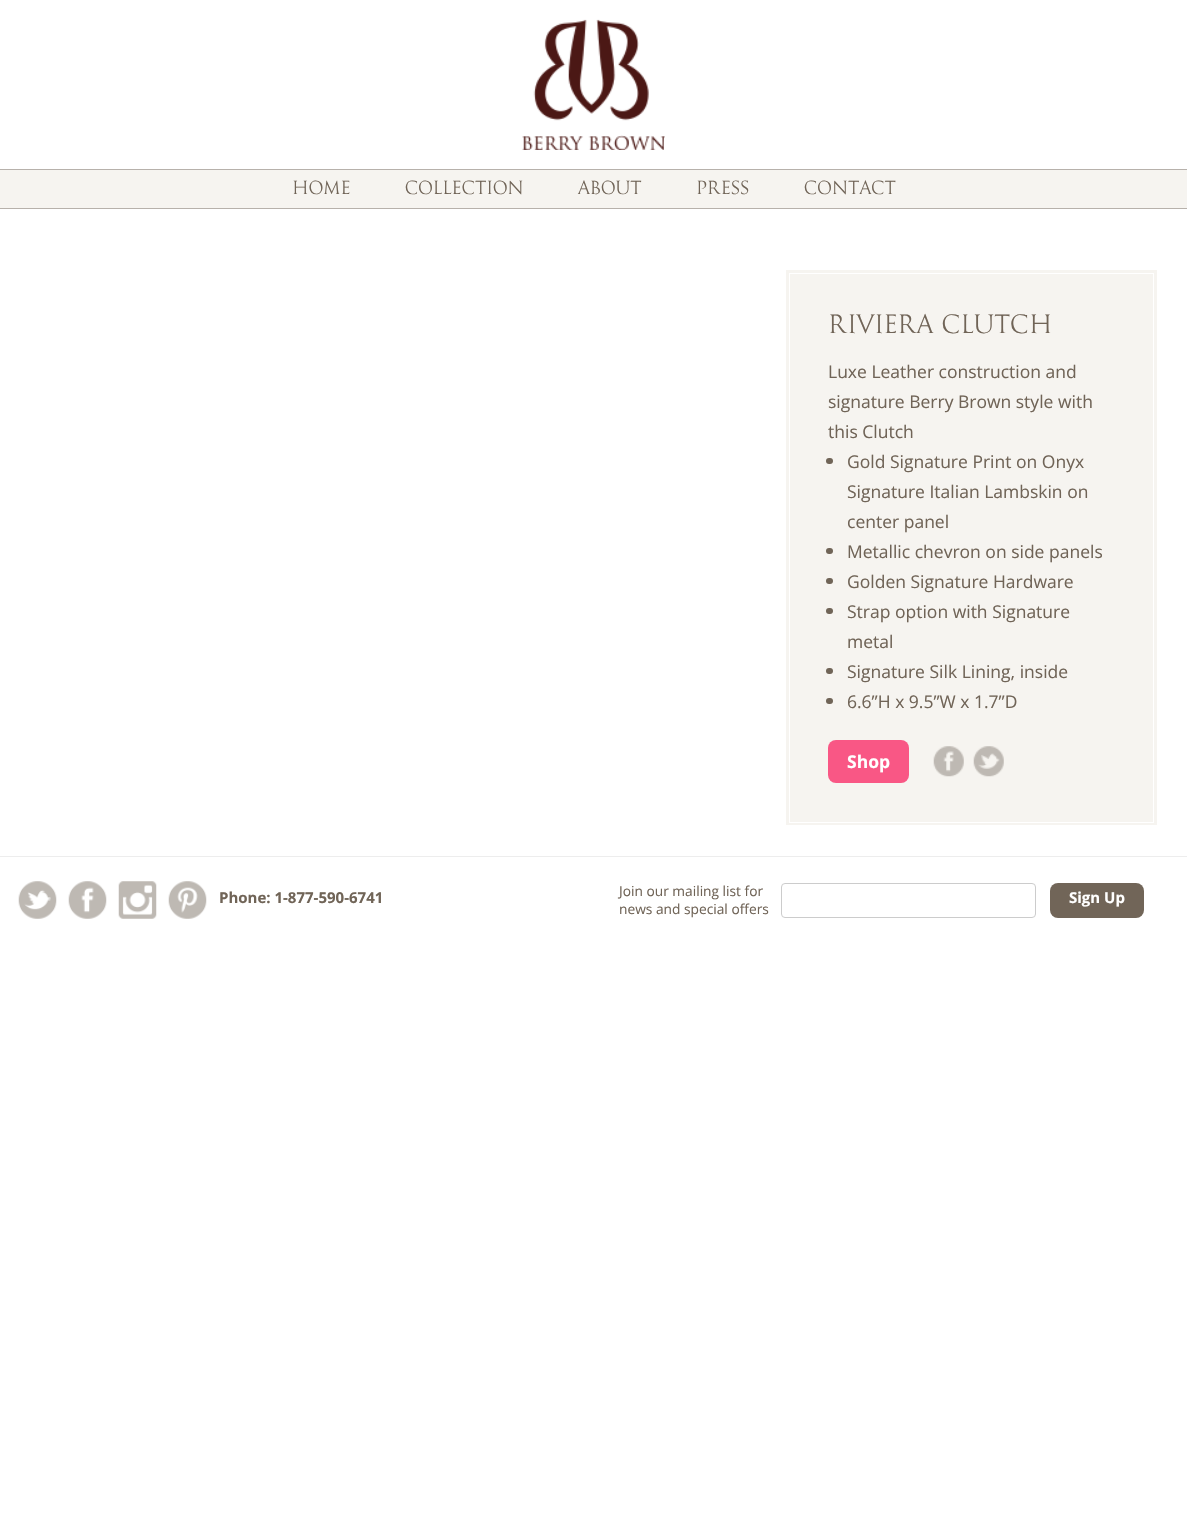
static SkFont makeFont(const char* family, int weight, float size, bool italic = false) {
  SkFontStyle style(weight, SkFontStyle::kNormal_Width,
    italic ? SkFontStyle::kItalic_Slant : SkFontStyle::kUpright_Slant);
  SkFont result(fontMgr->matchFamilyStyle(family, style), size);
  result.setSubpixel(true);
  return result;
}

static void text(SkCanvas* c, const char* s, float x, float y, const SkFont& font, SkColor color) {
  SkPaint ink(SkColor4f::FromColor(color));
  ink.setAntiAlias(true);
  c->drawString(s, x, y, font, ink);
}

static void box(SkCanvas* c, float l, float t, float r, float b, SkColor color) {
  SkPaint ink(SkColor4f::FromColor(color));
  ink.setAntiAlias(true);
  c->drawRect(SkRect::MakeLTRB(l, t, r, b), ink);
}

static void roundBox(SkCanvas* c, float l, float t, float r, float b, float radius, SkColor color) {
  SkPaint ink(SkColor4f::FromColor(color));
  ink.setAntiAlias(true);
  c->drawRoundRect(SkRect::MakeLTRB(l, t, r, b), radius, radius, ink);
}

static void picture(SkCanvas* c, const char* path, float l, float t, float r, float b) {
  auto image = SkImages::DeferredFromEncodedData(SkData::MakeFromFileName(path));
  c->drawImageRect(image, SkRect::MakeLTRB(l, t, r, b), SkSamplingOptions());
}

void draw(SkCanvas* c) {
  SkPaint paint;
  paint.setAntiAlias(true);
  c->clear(0xffffffff);
  picture(c, "img_01.png", 522, 19, 665, 150);
  box(c, 0, 170, 1187, 208, 0xfff6f4f0);
  box(c, 0, 169, 1187, 170, 0xffb7b1ab);
  box(c, 0, 208, 1187, 209, 0xffb7b1ab);
  SkFont face1 = makeFont("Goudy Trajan", 400, 18.75f);
  text(c, "HOME", 292, 194, face1, 0xff706457);
  text(c, "COLLECTION", 405, 194, face1, 0xff706457);
  text(c, "ABOUT", 578, 194, face1, 0xff706457);
  text(c, "PRESS", 696, 194, face1, 0xff706457);
  text(c, "CONTACT", 804, 194, face1, 0xff706457);
  box(c, 786, 270, 1157, 825, 0xfff6f4f0);
  paint.setStyle(SkPaint::kStroke_Style);
  paint.setStrokeWidth(1);
  paint.setColor(0xffffffff);
  c->drawRect(SkRect::MakeLTRB(789.5f, 273.5f, 1153.5f, 822.5f), paint);
  SkFont face2 = makeFont("Goudy Trajan", 400, 26.25f);
  text(c, "Riviera Clutch", 828, 333, face2, 0xff706457);
  SkFont face3 = makeFont("Open Sans", 400, 17.5f);
  text(c, "Luxe Leather construction and", 828, 378, face3, 0xff706457);
  text(c, "signature Berry Brown style with", 828, 408, face3, 0xff706457);
  text(c, "this Clutch", 828, 438, face3, 0xff706457);
  roundBox(c, 826, 458, 833, 464, 3, 0xff706457);
  text(c, "Gold Signature Print on Onyx", 847, 468, face3, 0xff706457);
  text(c, "Signature Italian Lambskin on", 847, 498, face3, 0xff706457);
  text(c, "center panel", 847, 528, face3, 0xff706457);
  roundBox(c, 826, 548, 833, 554, 3, 0xff706457);
  text(c, "Metallic chevron on side panels", 847, 558, face3, 0xff706457);
  roundBox(c, 826, 578, 833, 584, 3, 0xff706457);
  text(c, "Golden Signature Hardware", 847, 588, face3, 0xff706457);
  roundBox(c, 826, 608, 833, 614, 3, 0xff706457);
  text(c, "Strap option with Signature", 847, 618, face3, 0xff706457);
  text(c, "metal", 847, 648, face3, 0xff706457);
  roundBox(c, 826, 668, 833, 674, 3, 0xff706457);
  text(c, "Signature Silk Lining, inside", 847, 678, face3, 0xff706457);
  roundBox(c, 826, 698, 833, 704, 3, 0xff706457);
  text(c, "6.6”H x 9.5”W x 1.7”D", 847, 708, face3, 0xff706457);
  roundBox(c, 828, 740, 909, 783, 8, 0xfff95785);
  SkFont face4 = makeFont("Open Sans", 700, 17.5f);
  text(c, "Shop", 847, 768, face4, 0xffffffff);
  picture(c, "img_02.png", 933, 746, 964, 777);
  picture(c, "img_03.png", 973, 746, 1004, 777);
  box(c, 0, 856, 1187, 857, 0xffededed);
  picture(c, "img_04.png", 18, 881, 57, 919);
  picture(c, "img_05.png", 68, 881, 107, 919);
  picture(c, "img_06.png", 118, 881, 157, 919);
  picture(c, "img_07.png", 168, 881, 207, 919);
  SkFont face5 = makeFont("Open Sans", 700, 15);
  text(c, "Phone: 1-877-590-6741", 219, 903, face5, 0xff706457);
  SkFont face6 = makeFont("Open Sans", 400, 13.75f);
  text(c, "Join our mailing list for", 619, 896, face6, 0xff706457);
  text(c, "news and special offers", 619, 914, face6, 0xff706457);
  paint.setColor(0xffcccccc);
  c->drawRoundRect(SkRect::MakeLTRB(781.5f, 883.5f, 1035.5f, 917.5f), 3.5f, 3.5f, paint);
  roundBox(c, 1050, 883, 1144, 918, 8, 0xff716558);
  text(c, "Sign Up", 1069, 903, face5, 0xffffffff);
}
